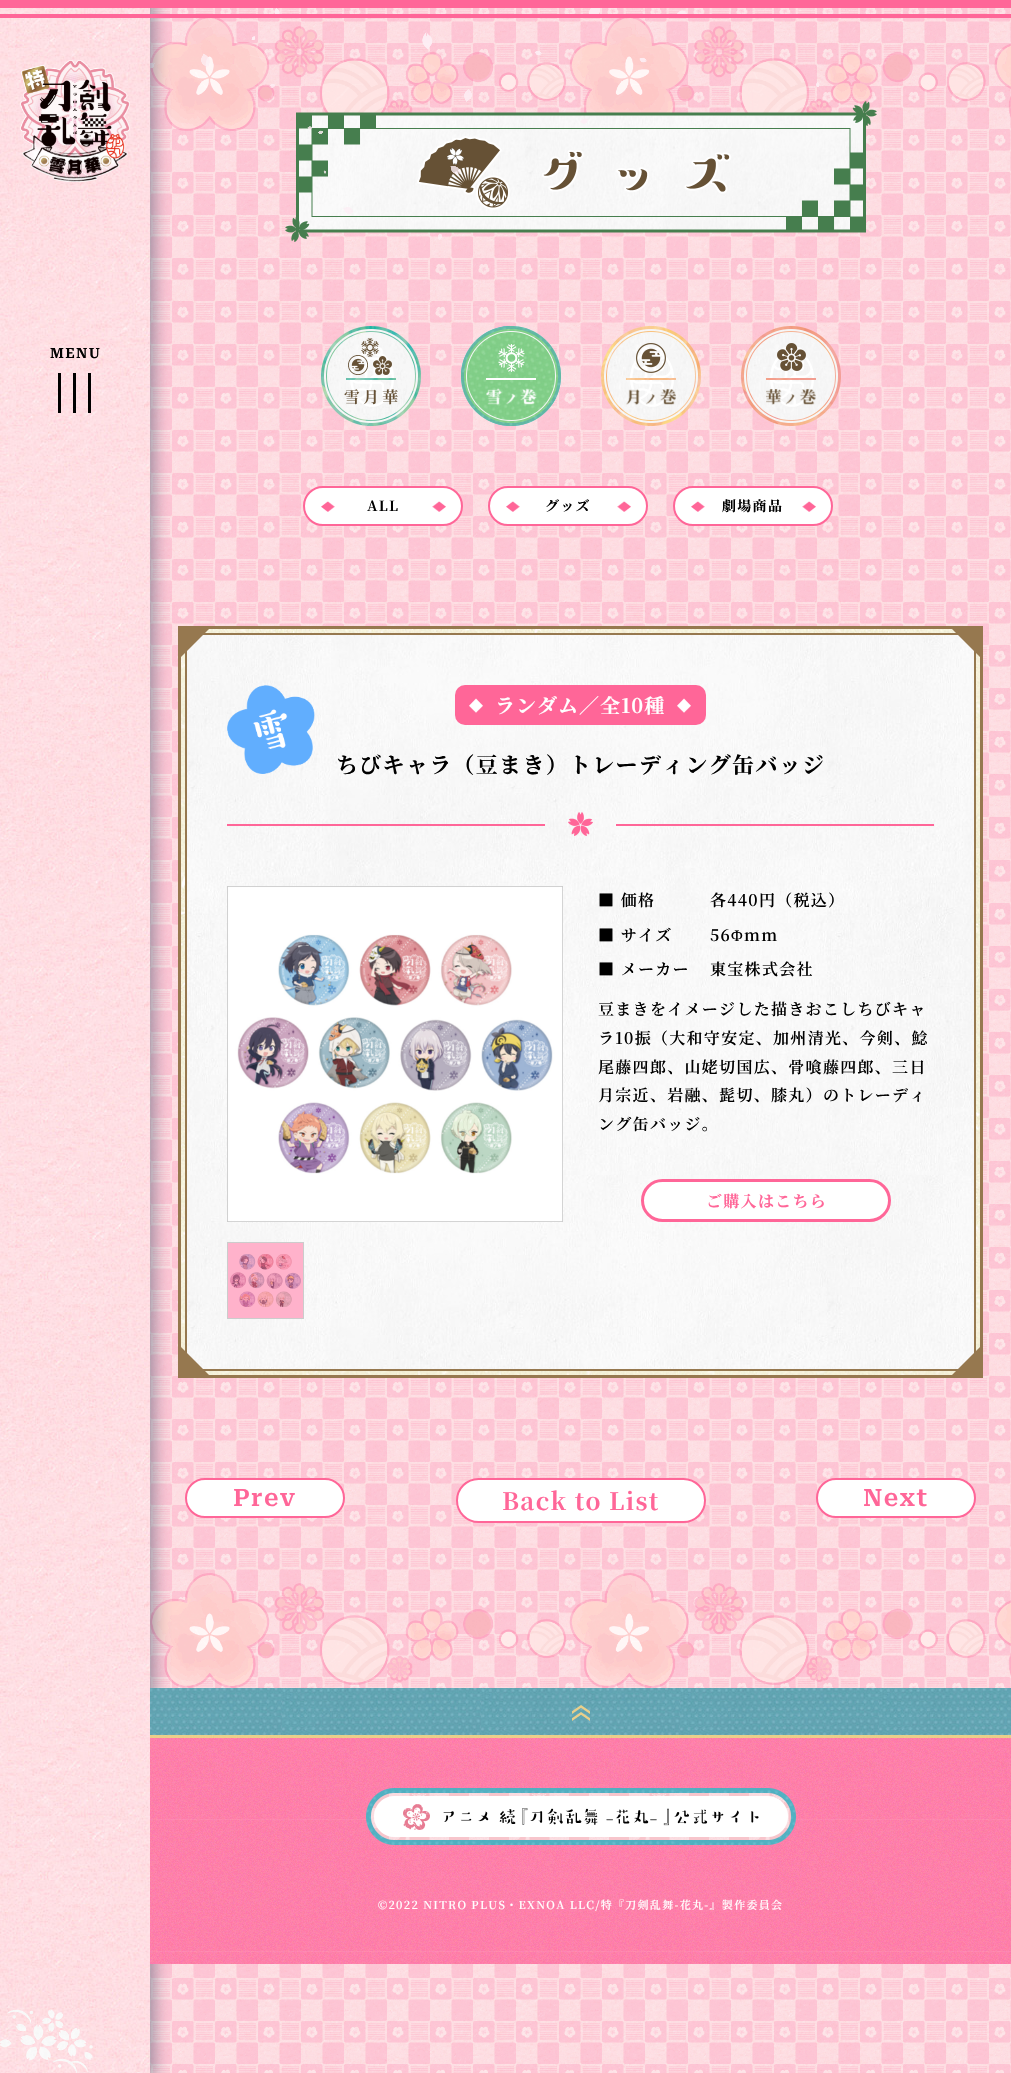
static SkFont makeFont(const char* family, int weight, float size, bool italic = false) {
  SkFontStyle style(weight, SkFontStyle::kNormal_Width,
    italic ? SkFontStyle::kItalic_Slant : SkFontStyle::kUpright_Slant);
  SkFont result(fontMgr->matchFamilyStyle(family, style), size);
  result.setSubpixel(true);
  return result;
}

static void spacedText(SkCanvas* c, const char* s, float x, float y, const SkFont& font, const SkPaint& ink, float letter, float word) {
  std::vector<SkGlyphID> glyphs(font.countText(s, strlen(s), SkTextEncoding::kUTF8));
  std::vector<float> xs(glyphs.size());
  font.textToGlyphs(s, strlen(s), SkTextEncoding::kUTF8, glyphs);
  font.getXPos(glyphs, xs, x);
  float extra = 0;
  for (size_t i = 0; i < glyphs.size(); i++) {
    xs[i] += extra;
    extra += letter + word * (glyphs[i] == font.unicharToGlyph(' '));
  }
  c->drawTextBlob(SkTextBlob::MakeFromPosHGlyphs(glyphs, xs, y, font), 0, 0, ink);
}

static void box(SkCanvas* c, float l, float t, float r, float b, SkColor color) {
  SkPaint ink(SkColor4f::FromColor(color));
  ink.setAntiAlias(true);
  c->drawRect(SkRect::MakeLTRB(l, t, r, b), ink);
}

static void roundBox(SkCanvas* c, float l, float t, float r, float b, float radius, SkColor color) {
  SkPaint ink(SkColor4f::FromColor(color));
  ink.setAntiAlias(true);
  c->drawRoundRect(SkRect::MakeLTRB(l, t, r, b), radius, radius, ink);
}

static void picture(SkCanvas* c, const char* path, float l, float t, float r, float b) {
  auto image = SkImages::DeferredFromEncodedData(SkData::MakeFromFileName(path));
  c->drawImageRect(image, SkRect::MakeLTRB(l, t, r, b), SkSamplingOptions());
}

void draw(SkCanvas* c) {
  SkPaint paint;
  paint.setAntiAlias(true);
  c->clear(0xffffffff);
  picture(c, "img_01.png", 150, 8, 1011, 2073);
  picture(c, "img_06.png", 150, 8, 1011, 2073);
  picture(c, "img_07.png", 150, 8, 1011, 2073);
  picture(c, "img_08.png", 150, 18, 1011, 131);
  picture(c, "img_09.png", 285, 101, 877, 242);
  picture(c, "img_02.png", 150, 8, 820, 240);
  picture(c, "img_18.png", 181, 629, 980, 1375);
  paint.setStyle(SkPaint::kStroke_Style);
  paint.setStrokeWidth(3);
  paint.setColor(0xff96784f);
  c->drawRect(SkRect::MakeLTRB(179.5f, 627.5f, 981.5f, 1376.5f), paint);
  picture(c, "img_24.png", 150, 1573, 1011, 1688);
  paint.setStyle(SkPaint::kFill_Style);
  paint.setColor(0x803f566c);
  paint.setMaskFilter(SkMaskFilter::MakeBlur(kNormal_SkBlurStyle, 7.5f));
  c->drawRect(SkRect::MakeLTRB(-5, -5, 155, 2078), paint);
  paint.setMaskFilter(nullptr);
  box(c, 0, 0, 1011, 8, 0xffff6698);
  picture(c, "img_03.png", 0, 8, 150, 2073);
  box(c, 0, 14, 1011, 18, 0xffff6698);
  picture(c, "img_04.png", 20, 60, 130, 182);
  SkFont face1 = makeFont("Roboto Serif", 600, 14);
  paint.setColor(0xff000000);
  spacedText(c, "MENU", 50, 358, face1, paint, 1.3f, 0);
  box(c, 58, 373, 61, 413, 0xff000000);
  box(c, 73, 373, 76, 413, 0xff000000);
  box(c, 88, 373, 91, 413, 0xff000000);
  picture(c, "img_05.png", 0, 2009, 93, 2073);
  picture(c, "img_10.png", 321, 326, 421, 426);
  picture(c, "img_11.png", 461, 326, 561, 426);
  picture(c, "img_12.png", 461, 326, 561, 426);
  picture(c, "img_13.png", 601, 326, 701, 426);
  picture(c, "img_14.png", 741, 326, 841, 426);
  paint.setColor(0xffffffff);
  c->drawRoundRect(SkRect::MakeLTRB(304, 487, 462, 525), 19, 19, paint);
  paint.setStyle(SkPaint::kStroke_Style);
  paint.setStrokeWidth(2);
  paint.setColor(0xffff6698);
  c->drawRoundRect(SkRect::MakeLTRB(304, 487, 462, 525), 19, 19, paint);
  SkFont face2 = makeFont("Noto Serif JP", 700, 14);
  paint.setStyle(SkPaint::kFill_Style);
  paint.setColor(0xff000000);
  spacedText(c, "ALL", 367, 511, face2, paint, 1.3f, 0);
  picture(c, "img_15.png", 321, 501, 446, 512);
  paint.setColor(0xffffffff);
  c->drawRoundRect(SkRect::MakeLTRB(489, 487, 647, 525), 19, 19, paint);
  paint.setStyle(SkPaint::kStroke_Style);
  paint.setColor(0xffff6698);
  c->drawRoundRect(SkRect::MakeLTRB(489, 487, 647, 525), 19, 19, paint);
  paint.setStyle(SkPaint::kFill_Style);
  paint.setColor(0xff000000);
  spacedText(c, "グッズ", 545, 511, face2, paint, 1.3f, 0);
  picture(c, "img_16.png", 506, 501, 631, 512);
  paint.setColor(0xffffffff);
  c->drawRoundRect(SkRect::MakeLTRB(674, 487, 832, 525), 19, 19, paint);
  paint.setStyle(SkPaint::kStroke_Style);
  paint.setColor(0xffff6698);
  c->drawRoundRect(SkRect::MakeLTRB(674, 487, 832, 525), 19, 19, paint);
  paint.setStyle(SkPaint::kFill_Style);
  paint.setColor(0xff000000);
  spacedText(c, "劇場商品", 722, 511, face2, paint, 1.3f, 0);
  picture(c, "img_17.png", 691, 501, 816, 512);
  picture(c, "img_19.png", 187, 635, 974, 1369);
  paint.setStyle(SkPaint::kStroke_Style);
  paint.setColor(0xff96784f);
  c->drawRect(SkRect::MakeLTRB(186, 634, 975, 1370), paint);
  c->save();
  c->clipRect(SkRect::MakeLTRB(181, 629, 980, 1375));
  paint.setStyle(SkPaint::kFill_Style);
  c->drawPath(SkPathBuilder().moveTo(181, 601).lineTo(209, 629).lineTo(181, 657).lineTo(153, 629).close().detach(), paint);
  c->drawPath(SkPathBuilder().moveTo(980, 601).lineTo(1008, 629).lineTo(980, 657).lineTo(952, 629).close().detach(), paint);
  c->restore();
  picture(c, "img_20.png", 227, 685, 315, 774);
  roundBox(c, 455, 685, 706, 725, 10, 0xffff6698);
  paint.setColor(0xffffffff);
  spacedText(c, "◆", 469, 711, face2, paint, 1, 0);
  SkFont face3 = makeFont("Noto Serif JP", 700, 20);
  spacedText(c, "ランダム／全10種", 495, 713, face3, paint, 1, 0);
  spacedText(c, "◆", 677, 711, face2, paint, 1, 0);
  SkFont face4 = makeFont("Noto Serif JP", 700, 22);
  paint.setColor(0xff000000);
  spacedText(c, "ちびキャラ（豆まき）トレーディング缶バッジ", 336, 773, face4, paint, 1.3f, 0);
  box(c, 227, 824, 545, 826, 0xffff6698);
  picture(c, "img_21.png", 568, 812, 593, 836);
  box(c, 616, 824, 934, 826, 0xffff6698);
  paint.setStyle(SkPaint::kStroke_Style);
  paint.setStrokeWidth(1);
  paint.setColor(0xffcccccc);
  c->drawRect(SkRect::MakeLTRB(227.5f, 886.5f, 562.5f, 1221.5f), paint);
  picture(c, "img_22.png", 227, 886, 563, 1222);
  paint.setStyle(SkPaint::kFill_Style);
  paint.setColor(0xffffffff);
  c->drawRect(SkRect::MakeLTRB(227.5f, 1242.5f, 303.5f, 1318.5f), paint);
  paint.setStyle(SkPaint::kStroke_Style);
  paint.setColor(0xffcccccc);
  c->drawRect(SkRect::MakeLTRB(227.5f, 1242.5f, 303.5f, 1318.5f), paint);
  picture(c, "img_23.png", 230, 1254, 301, 1307);
  box(c, 228, 1243, 303, 1318, 0x80ff6698);
  SkFont face5 = makeFont("Noto Serif JP", 600, 16);
  paint.setStyle(SkPaint::kFill_Style);
  paint.setColor(0xff000000);
  spacedText(c, "■ 価格", 598, 906, face5, paint, 1.3f, 0);
  spacedText(c, "各440円（税込）", 710, 906, face5, paint, 1.3f, 0);
  spacedText(c, "■ サイズ", 598, 941, face5, paint, 1.3f, 0);
  spacedText(c, "56", 710, 941, face5, paint, 1.3f, 0);
  SkFont face6 = makeFont("Liberation Serif", 400, 16);
  spacedText(c, "Φ", 731, 941, face6, paint, 1.3f, 0);
  spacedText(c, "mm", 744, 941, face5, paint, 1.3f, 0);
  spacedText(c, "■ メーカー", 598, 975, face5, paint, 1.3f, 0);
  spacedText(c, "東宝株式会社", 710, 975, face5, paint, 1.3f, 0);
  spacedText(c, "豆まきをイメージした描きおこしちびキャ", 598, 1015, face5, paint, 1.3f, 0);
  spacedText(c, "ラ10振（大和守安定、加州清光、今剣、鯰", 598, 1044, face5, paint, 1.3f, 0);
  spacedText(c, "尾藤四郎、山姥切国広、骨喰藤四郎、三日", 598, 1073, face5, paint, 1.3f, 0);
  spacedText(c, "月宗近、岩融、髭切、膝丸）のトレーディ", 598, 1101, face5, paint, 1.3f, 0);
  spacedText(c, "ング缶バッジ。", 598, 1130, face5, paint, 1.3f, 0);
  paint.setColor(0xffffffff);
  c->drawRoundRect(SkRect::MakeLTRB(642.5f, 1180.5f, 889.5f, 1220.5f), 20, 20, paint);
  paint.setStyle(SkPaint::kStroke_Style);
  paint.setStrokeWidth(3);
  paint.setColor(0xffff6698);
  c->drawRoundRect(SkRect::MakeLTRB(642.5f, 1180.5f, 889.5f, 1220.5f), 20, 20, paint);
  SkFont face7 = makeFont("Noto Serif JP", 700, 16);
  paint.setStyle(SkPaint::kFill_Style);
  spacedText(c, "ご購入はこちら", 706, 1207, face7, paint, 1.3f, 0);
  c->save();
  c->clipRect(SkRect::MakeLTRB(181, 629, 980, 1375));
  paint.setColor(0xff96784f);
  c->drawPath(SkPathBuilder().moveTo(181, 1347).lineTo(209, 1375).lineTo(181, 1403).lineTo(153, 1375).close().detach(), paint);
  c->drawPath(SkPathBuilder().moveTo(980, 1347).lineTo(1008, 1375).lineTo(980, 1403).lineTo(952, 1375).close().detach(), paint);
  c->restore();
  paint.setColor(0xffffffff);
  c->drawRoundRect(SkRect::MakeLTRB(186, 1479, 344, 1517), 19, 19, paint);
  paint.setStyle(SkPaint::kStroke_Style);
  paint.setStrokeWidth(2);
  paint.setColor(0xffff6698);
  c->drawRoundRect(SkRect::MakeLTRB(186, 1479, 344, 1517), 19, 19, paint);
  SkFont face8 = makeFont("Roboto Serif", 600, 24);
  paint.setStyle(SkPaint::kFill_Style);
  spacedText(c, "Prev", 233, 1506, face8, paint, 1.3f, 0);
  paint.setColor(0xffffffff);
  c->drawRoundRect(SkRect::MakeLTRB(457, 1479, 705, 1522), 21.5f, 21.5f, paint);
  paint.setStyle(SkPaint::kStroke_Style);
  paint.setColor(0xffff6698);
  c->drawRoundRect(SkRect::MakeLTRB(457, 1479, 705, 1522), 21.5f, 21.5f, paint);
  SkFont face9 = makeFont("Noto Serif JP", 700, 24);
  paint.setStyle(SkPaint::kFill_Style);
  spacedText(c, "Back to List", 502, 1510, face9, paint, 1.3f, 0);
  paint.setColor(0xffffffff);
  c->drawRoundRect(SkRect::MakeLTRB(817, 1479, 975, 1517), 19, 19, paint);
  paint.setStyle(SkPaint::kStroke_Style);
  paint.setColor(0xffff6698);
  c->drawRoundRect(SkRect::MakeLTRB(817, 1479, 975, 1517), 19, 19, paint);
  paint.setStyle(SkPaint::kFill_Style);
  spacedText(c, "Next", 863, 1506, face8, paint, 1.3f, 0);
  picture(c, "img_25.png", 150, 1738, 1011, 1964);
  picture(c, "img_26.png", 150, 1688, 1011, 1738);
  picture(c, "img_27.png", 572, 1705, 590, 1721);
  picture(c, "img_28.png", 366, 1788, 796, 1845);
  SkFont face10 = makeFont("Noto Serif JP", 600, 11);
  paint.setColor(0xffffffff);
  spacedText(c, "©2022 NITRO PLUS・EXNOA LLC/特『刀剣乱舞-花丸-』製作委員会", 378, 1909, face10, paint, 1.3f, 0);
}
